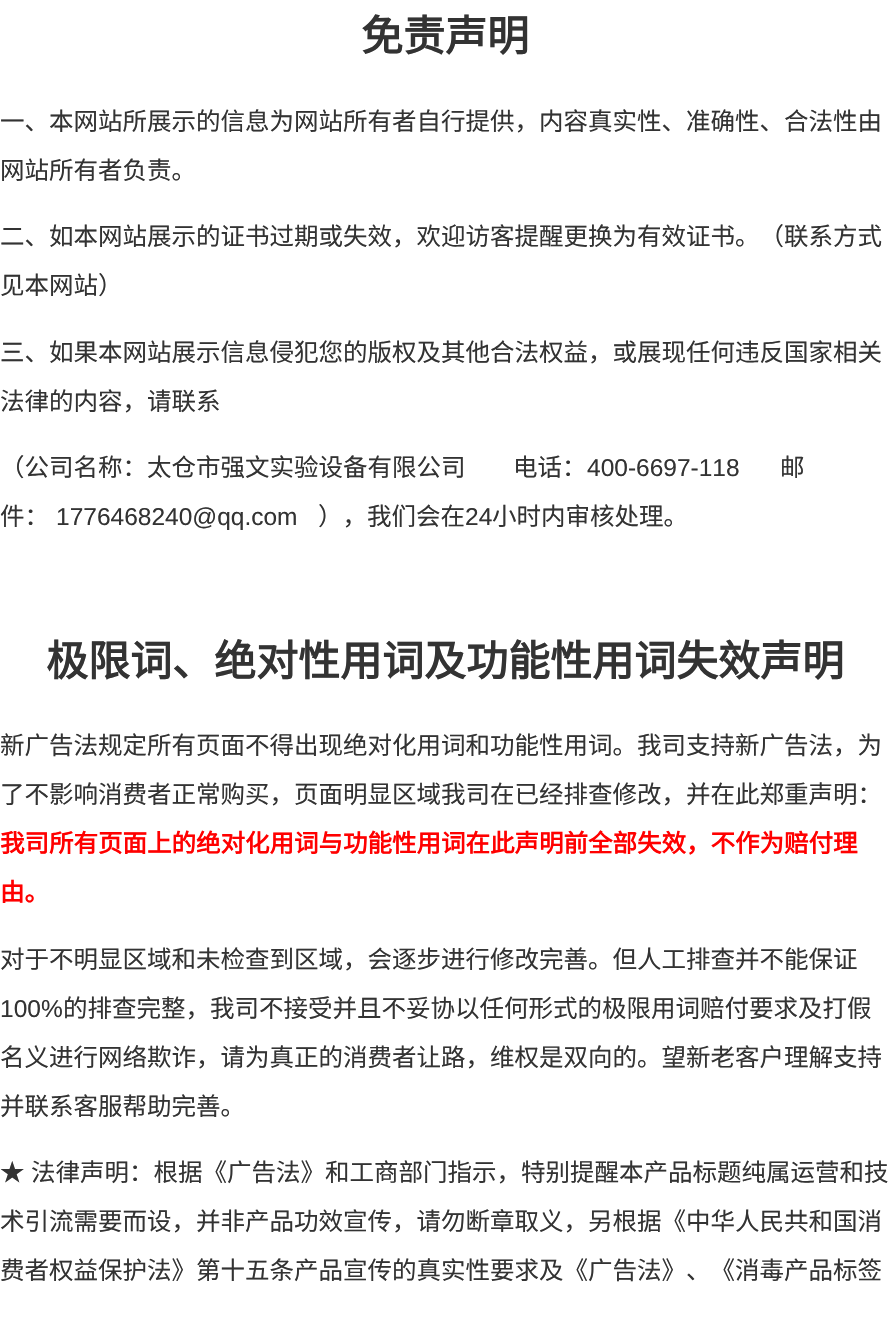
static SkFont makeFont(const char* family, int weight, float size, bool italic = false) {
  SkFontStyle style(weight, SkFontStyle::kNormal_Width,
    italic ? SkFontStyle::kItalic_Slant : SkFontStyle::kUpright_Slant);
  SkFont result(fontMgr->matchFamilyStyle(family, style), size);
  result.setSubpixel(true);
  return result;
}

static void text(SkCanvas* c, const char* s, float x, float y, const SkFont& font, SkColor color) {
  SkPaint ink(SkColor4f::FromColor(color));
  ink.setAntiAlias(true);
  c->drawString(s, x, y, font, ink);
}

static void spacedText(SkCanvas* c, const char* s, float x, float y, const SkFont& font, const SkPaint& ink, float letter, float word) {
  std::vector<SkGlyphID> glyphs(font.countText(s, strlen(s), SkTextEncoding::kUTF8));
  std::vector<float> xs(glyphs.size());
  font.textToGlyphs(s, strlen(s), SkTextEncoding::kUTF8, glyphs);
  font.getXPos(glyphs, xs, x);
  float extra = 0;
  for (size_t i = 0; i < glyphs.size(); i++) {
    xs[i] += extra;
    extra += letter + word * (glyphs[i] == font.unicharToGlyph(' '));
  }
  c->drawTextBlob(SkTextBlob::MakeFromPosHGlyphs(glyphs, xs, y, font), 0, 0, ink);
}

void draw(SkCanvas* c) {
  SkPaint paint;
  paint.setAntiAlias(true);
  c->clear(0xffffffff);
  SkFont face1 = makeFont("Noto Sans CJK SC", 700, 42);
  text(c, "免责声明", 361, 51, face1, 0xff333333);
  SkFont face2 = makeFont("Noto Sans CJK SC", 400, 24.5f);
  text(c, "一、本网站所展示的信息为网站所有者自行提供，内容真实性、准确性、合法性由", 0, 130, face2, 0xff333333);
  text(c, "网站所有者负责。", 0, 179, face2, 0xff333333);
  text(c, "二、如本网站展示的证书过期或失效，欢迎访客提醒更换为有效证书。（联系方式", 0, 245, face2, 0xff333333);
  text(c, "见本网站）", 0, 294, face2, 0xff333333);
  text(c, "三、如果本网站展示信息侵犯您的版权及其他合法权益，或展现任何违反国家相关", 0, 361, face2, 0xff333333);
  text(c, "法律的内容，请联系", 0, 410, face2, 0xff333333);
  text(c, "（公司名称：太仓市强文实验设备有限公司", 0, 476, face2, 0xff333333);
  text(c, "电话：", 513, 476, face2, 0xff333333);
  SkFont face3 = makeFont("Liberation Sans", 400, 24.5f);
  text(c, "400-6697-118", 587, 476, face3, 0xff333333);
  text(c, "邮", 780, 476, face2, 0xff333333);
  text(c, "件：", 0, 525, face2, 0xff333333);
  text(c, "1776468240@qq.com", 56, 525, face3, 0xff333333);
  text(c, "），我们会在", 318, 525, face2, 0xff333333);
  text(c, "24", 465, 525, face3, 0xff333333);
  text(c, "小时内审核处理。", 492, 525, face2, 0xff333333);
  text(c, "极限词、绝对性用词及功能性用词失效声明", 46, 676, face1, 0xff333333);
  text(c, "新广告法规定所有页面不得出现绝对化用词和功能性用词。我司支持新广告法，为", 0, 754, face2, 0xff333333);
  text(c, "了不影响消费者正常购买，页面明显区域我司在已经排查修改，并在此郑重声明：", 0, 803, face2, 0xff333333);
  SkFont face4 = makeFont("Noto Sans CJK SC", 700, 24.5f);
  text(c, "我司所有页面上的绝对化用词与功能性用词在此声明前全部失效，不作为赔付理", 0, 852, face4, 0xffff0000);
  text(c, "由。", 0, 901, face4, 0xffff0000);
  text(c, "对于不明显区域和未检查到区域，会逐步进行修改完善。但人工排查并不能保证", 0, 968, face2, 0xff333333);
  text(c, "100%", 0, 1017, face3, 0xff333333);
  text(c, "的排查完整，我司不接受并且不妥协以任何形式的极限用词赔付要求及打假", 63, 1017, face2, 0xff333333);
  text(c, "名义进行网络欺诈，请为真正的消费者让路，维权是双向的。望新老客户理解支持", 0, 1066, face2, 0xff333333);
  text(c, "并联系客服帮助完善。", 0, 1115, face2, 0xff333333);
  paint.setColor(0xff333333);
  spacedText(c, "★ 法律声明：根据《广告法》和工商部门指示，特别提醒本产品标题纯属运营和技", 0, 1181, face2, paint, 0, 1);
  text(c, "术引流需要而设，并非产品功效宣传，请勿断章取义，另根据《中华人民共和国消", 0, 1230, face2, 0xff333333);
  text(c, "费者权益保护法》第十五条产品宣传的真实性要求及《广告法》、《消毒产品标签", 0, 1279, face2, 0xff333333);
}
